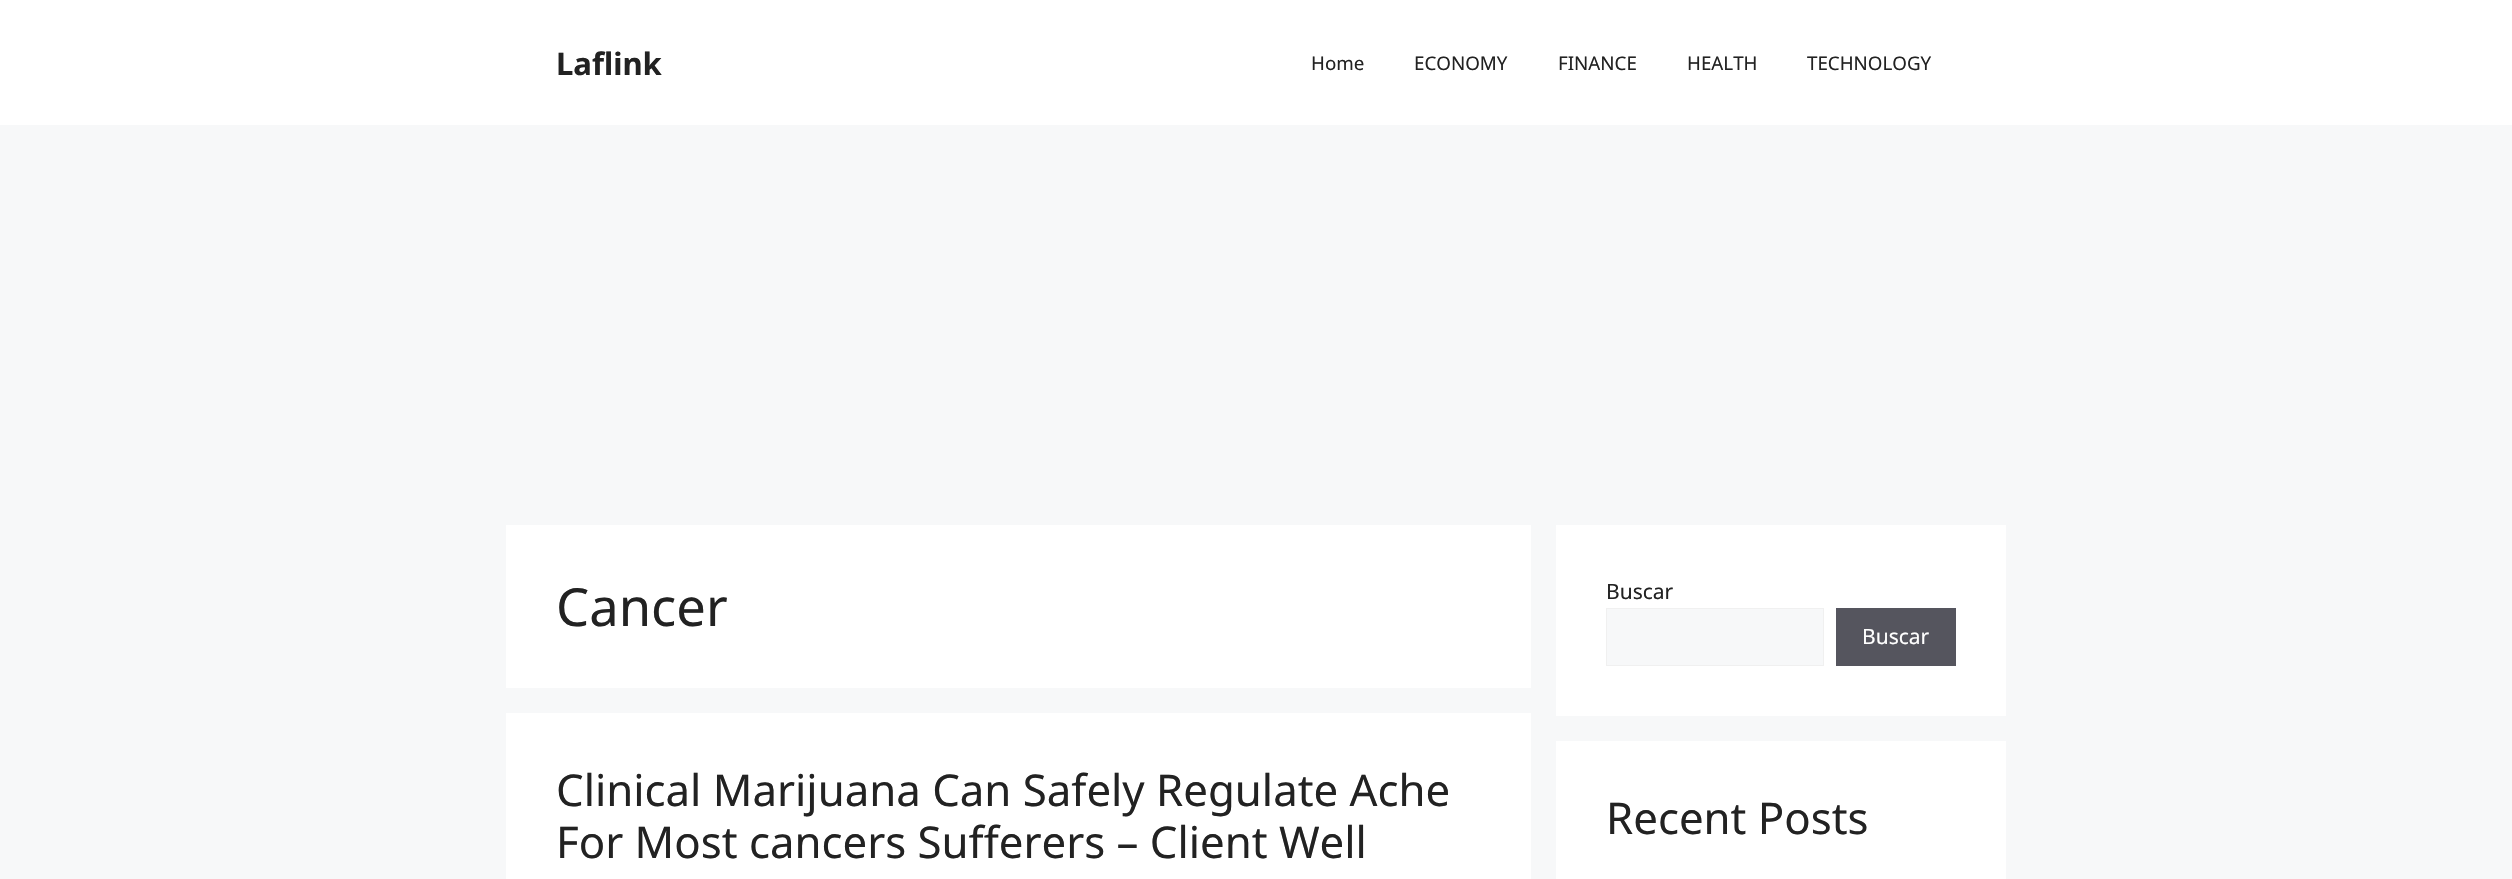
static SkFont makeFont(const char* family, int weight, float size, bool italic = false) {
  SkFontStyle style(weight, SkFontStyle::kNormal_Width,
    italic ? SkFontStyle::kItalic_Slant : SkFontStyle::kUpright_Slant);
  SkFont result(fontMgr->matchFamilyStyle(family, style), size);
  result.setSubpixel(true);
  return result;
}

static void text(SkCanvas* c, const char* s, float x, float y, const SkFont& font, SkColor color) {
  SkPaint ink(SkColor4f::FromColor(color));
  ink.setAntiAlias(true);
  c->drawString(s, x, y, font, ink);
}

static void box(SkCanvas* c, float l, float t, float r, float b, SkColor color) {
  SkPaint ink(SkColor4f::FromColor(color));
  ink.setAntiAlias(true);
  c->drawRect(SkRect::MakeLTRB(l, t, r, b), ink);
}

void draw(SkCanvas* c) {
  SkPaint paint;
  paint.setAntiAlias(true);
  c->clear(0xfff7f8f9);
  box(c, 0, 0, 2512, 125, 0xffffffff);
  SkFont face1 = makeFont("Noto Sans", 700, 31);
  text(c, "Laflink", 556, 75, face1, 0xff222222);
  SkFont face2 = makeFont("Noto Sans", 400, 18.75f);
  text(c, "Home", 1311, 70, face2, 0xff222222);
  text(c, "ECONOMY", 1414, 70, face2, 0xff222222);
  text(c, "FINANCE", 1558, 70, face2, 0xff222222);
  text(c, "HEALTH", 1687, 70, face2, 0xff222222);
  text(c, "TECHNOLOGY", 1807, 70, face2, 0xff222222);
  box(c, 506, 525, 1531, 688, 0xffffffff);
  SkFont face3 = makeFont("Noto Sans", 400, 52.5f);
  text(c, "Cancer", 556, 626, face3, 0xff222222);
  box(c, 506, 713, 1531, 879, 0xffffffff);
  SkFont face4 = makeFont("Noto Sans", 400, 43.75f);
  text(c, "Clinical Marijuana Can Safely Regulate Ache", 556, 806, face4, 0xff222222);
  text(c, "For Most cancers Sufferers – Client Well", 556, 858, face4, 0xff222222);
  box(c, 1556, 525, 2006, 716, 0xffffffff);
  SkFont face5 = makeFont("Noto Sans", 400, 21);
  text(c, "Buscar", 1606, 599, face5, 0xff222222);
  paint.setColor(0xfff7f8f9);
  c->drawRect(SkRect::MakeLTRB(1606.5f, 608.5f, 1823.5f, 665.5f), paint);
  paint.setStyle(SkPaint::kStroke_Style);
  paint.setStrokeWidth(1);
  paint.setColor(0xfff0f0f0);
  c->drawRect(SkRect::MakeLTRB(1606.5f, 608.5f, 1823.5f, 665.5f), paint);
  box(c, 1836, 608, 1956, 666, 0xff55555e);
  text(c, "Buscar", 1862, 644, face5, 0xffffffff);
  box(c, 1556, 741, 2006, 879, 0xffffffff);
  text(c, "Recent Posts", 1606, 834, face4, 0xff222222);
}
